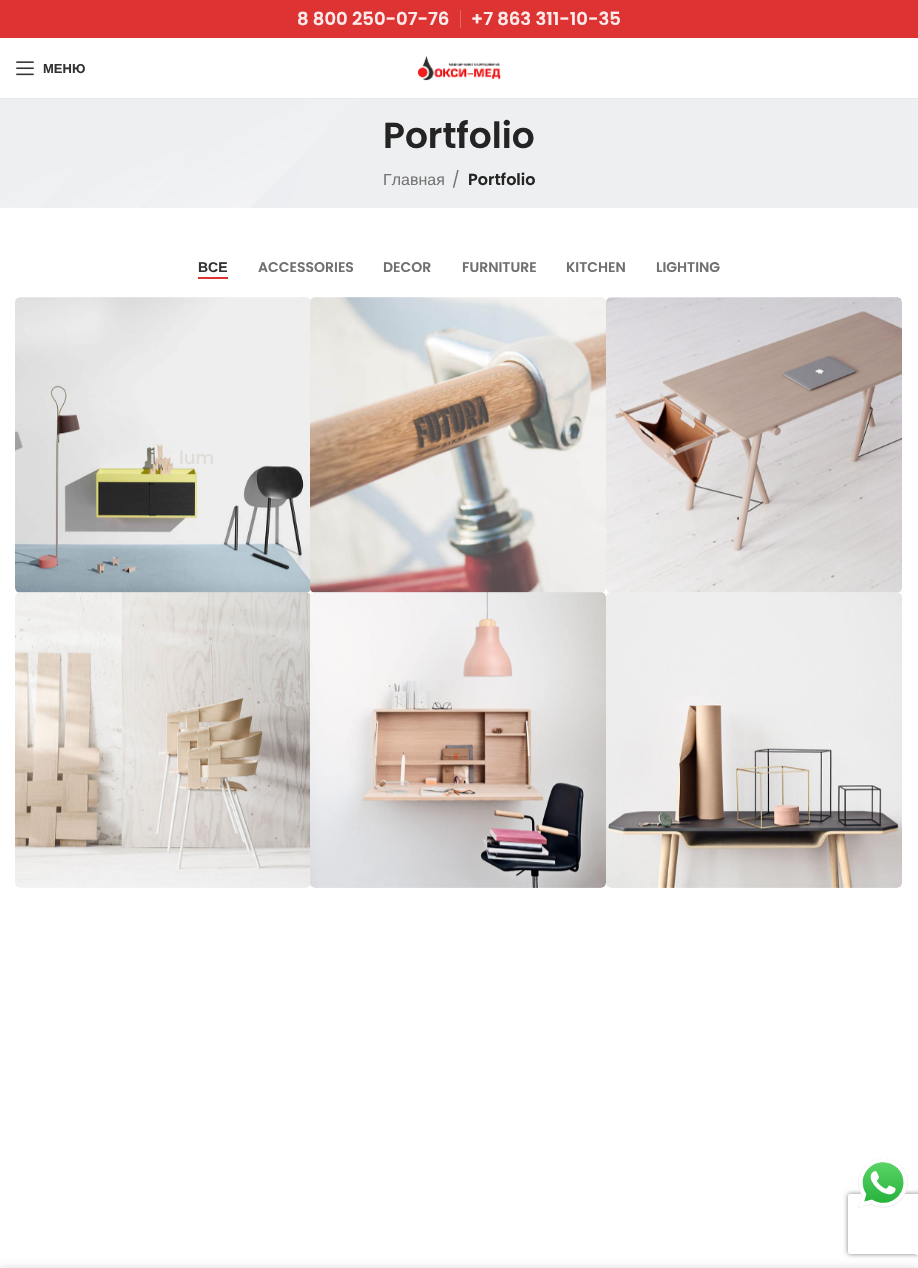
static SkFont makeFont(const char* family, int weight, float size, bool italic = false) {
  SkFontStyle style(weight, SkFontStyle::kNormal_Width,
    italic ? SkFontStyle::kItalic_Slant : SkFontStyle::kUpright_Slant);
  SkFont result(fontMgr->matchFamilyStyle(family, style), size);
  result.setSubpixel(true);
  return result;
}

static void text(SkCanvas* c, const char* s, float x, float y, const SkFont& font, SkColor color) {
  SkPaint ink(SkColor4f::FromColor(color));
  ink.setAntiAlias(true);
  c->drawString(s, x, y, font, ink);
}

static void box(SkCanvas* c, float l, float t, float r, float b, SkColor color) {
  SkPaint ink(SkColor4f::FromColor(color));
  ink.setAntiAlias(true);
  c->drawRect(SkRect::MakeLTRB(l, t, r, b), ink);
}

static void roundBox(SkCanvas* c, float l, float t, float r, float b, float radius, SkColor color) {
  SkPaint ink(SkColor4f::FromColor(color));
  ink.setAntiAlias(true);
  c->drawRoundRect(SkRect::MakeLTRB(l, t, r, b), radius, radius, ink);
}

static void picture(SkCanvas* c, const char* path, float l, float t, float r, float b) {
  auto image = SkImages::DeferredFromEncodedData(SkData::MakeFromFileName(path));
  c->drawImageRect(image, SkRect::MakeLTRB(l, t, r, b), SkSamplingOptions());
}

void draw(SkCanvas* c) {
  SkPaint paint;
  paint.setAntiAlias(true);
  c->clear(0xffffffff);
  box(c, 0, 0, 918, 38, 0xffdd3333);
  SkFont face1 = makeFont("Poppins", 600, 18);
  text(c, "8 800 250-07-76", 297, 25, face1, 0xfffcebeb);
  box(c, 460, 10, 461, 28, 0xffe66666);
  text(c, "+7 863 311-10-35", 471, 25, face1, 0xfffcebeb);
  box(c, 0, 98, 918, 99, 0xffe8e8e8);
  picture(c, "img_01.png", 16, 61, 34, 76);
  SkFont face2 = makeFont("Liberation Sans", 700, 13);
  text(c, "МЕНЮ", 43, 73, face2, 0xff333333);
  picture(c, "img_02.png", 417, 56, 501, 81);
  picture(c, "img_03.png", 0, 99, 918, 208);
  SkFont face3 = makeFont("Poppins", 600, 36);
  text(c, "Portfolio", 383, 148, face3, 0xff242424);
  SkFont face4 = makeFont("Liberation Sans", 400, 16);
  text(c, "Главная", 383, 185, face4, 0xff767676);
  SkFont face5 = makeFont("Poppins", 400, 16);
  text(c, "/", 452, 185, face5, 0xff767676);
  SkFont face6 = makeFont("Poppins", 600, 16);
  text(c, "Portfolio", 468, 185, face6, 0xff242424);
  SkFont face7 = makeFont("Liberation Sans", 700, 14);
  text(c, "ВСЕ", 198, 272, face7, 0xff333333);
  box(c, 198, 277, 228, 279, 0xffdd3333);
  SkFont face8 = makeFont("Poppins", 600, 14);
  text(c, "ACCESSORIES", 258, 272, face8, 0xff707070);
  text(c, "DECOR", 383, 272, face8, 0xff707070);
  text(c, "FURNITURE", 462, 272, face8, 0xff707070);
  text(c, "KITCHEN", 566, 272, face8, 0xff707070);
  text(c, "LIGHTING", 656, 272, face8, 0xff707070);
  picture(c, "img_04.png", 15, 297, 311, 593);
  SkFont face9 = makeFont("Poppins", 500, 18);
  text(c, "i", 150, 464, face9, 0xffe0ddd9);
  text(c, "lum", 179, 464, face9, 0xffe0ddd9);
  picture(c, "img_05.png", 310, 297, 606, 593);
  picture(c, "img_06.png", 606, 297, 902, 593);
  picture(c, "img_07.png", 15, 592, 311, 888);
  picture(c, "img_08.png", 310, 592, 606, 888);
  picture(c, "img_09.png", 606, 592, 902, 888);
  c->save();
  c->clipPath(SkPathBuilder(SkPathFillType::kEvenOdd).moveTo(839, 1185).lineTo(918, 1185).lineTo(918, 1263).lineTo(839, 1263).close().moveTo(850, 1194).lineTo(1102, 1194).cubicTo(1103, 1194, 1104, 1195, 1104, 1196).lineTo(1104, 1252).cubicTo(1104, 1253, 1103, 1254, 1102, 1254).lineTo(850, 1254).cubicTo(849, 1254, 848, 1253, 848, 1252).lineTo(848, 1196).cubicTo(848, 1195, 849, 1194, 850, 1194).close().detach(), true);
  paint.setColor(0xff808080);
  paint.setMaskFilter(SkMaskFilter::MakeBlur(kNormal_SkBlurStyle, 2.5f));
  c->drawRoundRect(SkRect::MakeLTRB(848, 1194, 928, 1254), 2, 2, paint);
  paint.setMaskFilter(nullptr);
  c->restore();
  picture(c, "img_10.png", 858, 1158, 908, 1208);
  roundBox(c, 906, 1216, 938, 1256, 20, 0xffffffff);
  paint.setColor(0x24000000);
  paint.setMaskFilter(SkMaskFilter::MakeBlur(kNormal_SkBlurStyle, 4.5f));
  c->drawRect(SkRect::MakeLTRB(0, 1268, 918, 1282), paint);
  paint.setMaskFilter(nullptr);
}
